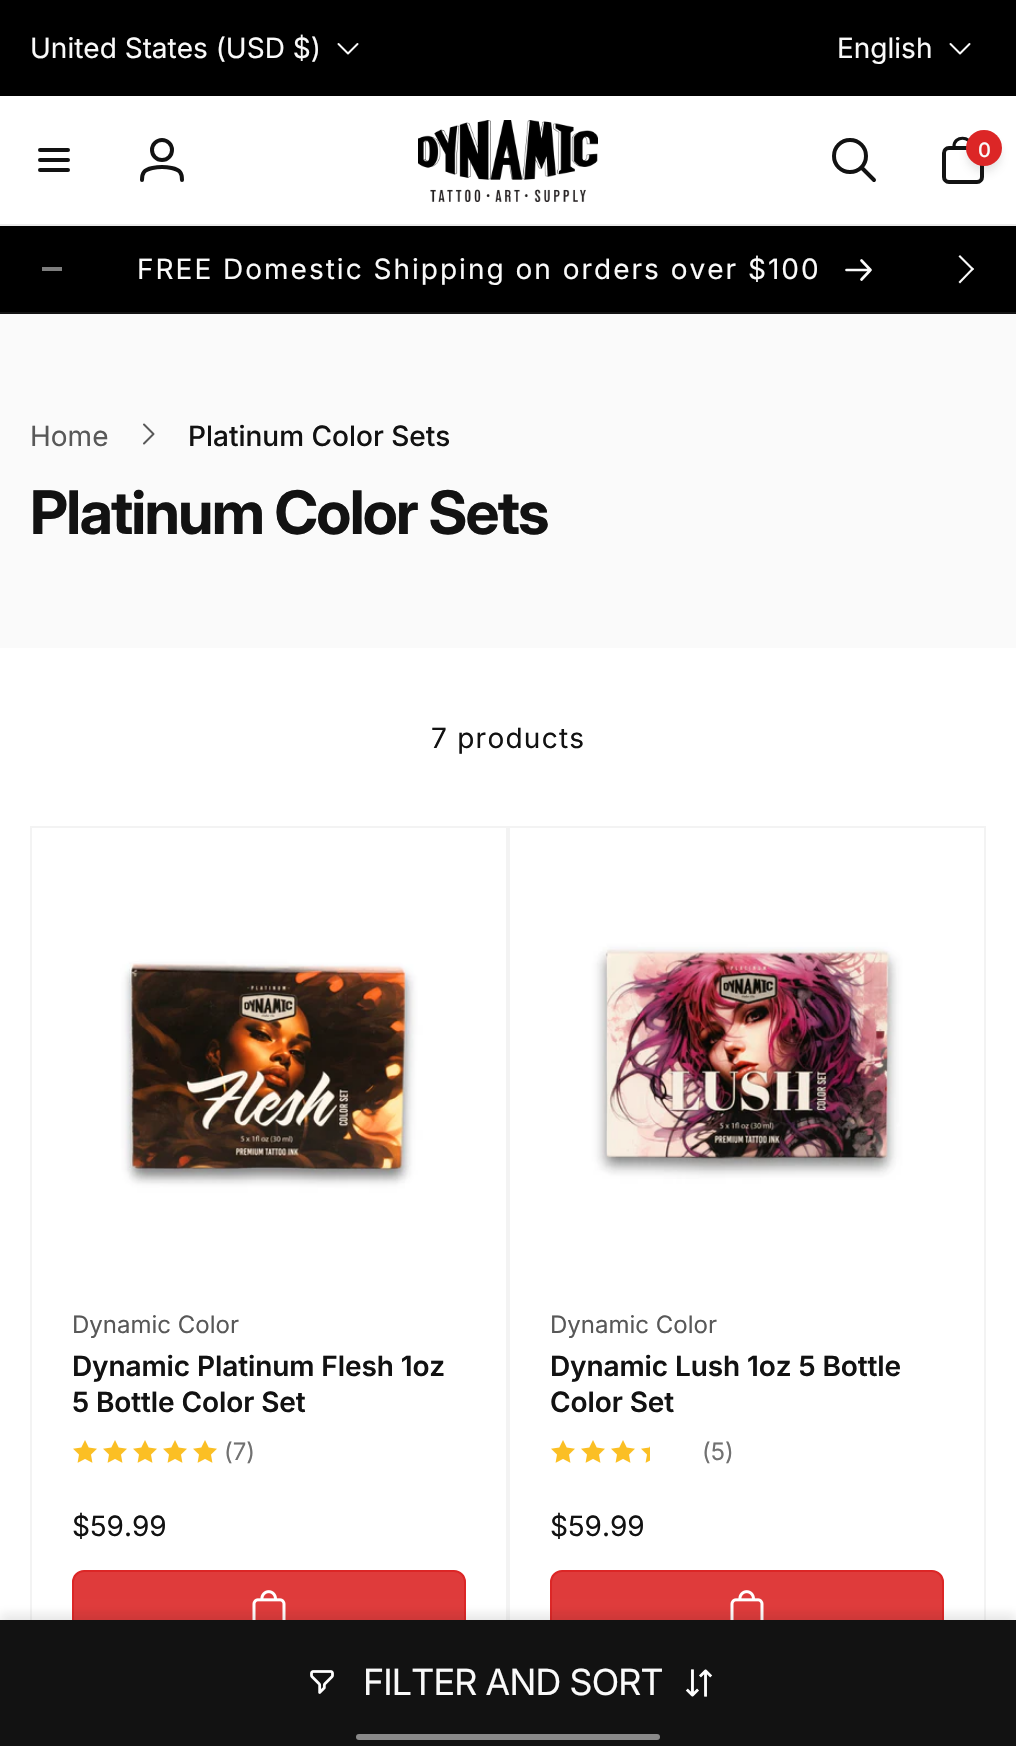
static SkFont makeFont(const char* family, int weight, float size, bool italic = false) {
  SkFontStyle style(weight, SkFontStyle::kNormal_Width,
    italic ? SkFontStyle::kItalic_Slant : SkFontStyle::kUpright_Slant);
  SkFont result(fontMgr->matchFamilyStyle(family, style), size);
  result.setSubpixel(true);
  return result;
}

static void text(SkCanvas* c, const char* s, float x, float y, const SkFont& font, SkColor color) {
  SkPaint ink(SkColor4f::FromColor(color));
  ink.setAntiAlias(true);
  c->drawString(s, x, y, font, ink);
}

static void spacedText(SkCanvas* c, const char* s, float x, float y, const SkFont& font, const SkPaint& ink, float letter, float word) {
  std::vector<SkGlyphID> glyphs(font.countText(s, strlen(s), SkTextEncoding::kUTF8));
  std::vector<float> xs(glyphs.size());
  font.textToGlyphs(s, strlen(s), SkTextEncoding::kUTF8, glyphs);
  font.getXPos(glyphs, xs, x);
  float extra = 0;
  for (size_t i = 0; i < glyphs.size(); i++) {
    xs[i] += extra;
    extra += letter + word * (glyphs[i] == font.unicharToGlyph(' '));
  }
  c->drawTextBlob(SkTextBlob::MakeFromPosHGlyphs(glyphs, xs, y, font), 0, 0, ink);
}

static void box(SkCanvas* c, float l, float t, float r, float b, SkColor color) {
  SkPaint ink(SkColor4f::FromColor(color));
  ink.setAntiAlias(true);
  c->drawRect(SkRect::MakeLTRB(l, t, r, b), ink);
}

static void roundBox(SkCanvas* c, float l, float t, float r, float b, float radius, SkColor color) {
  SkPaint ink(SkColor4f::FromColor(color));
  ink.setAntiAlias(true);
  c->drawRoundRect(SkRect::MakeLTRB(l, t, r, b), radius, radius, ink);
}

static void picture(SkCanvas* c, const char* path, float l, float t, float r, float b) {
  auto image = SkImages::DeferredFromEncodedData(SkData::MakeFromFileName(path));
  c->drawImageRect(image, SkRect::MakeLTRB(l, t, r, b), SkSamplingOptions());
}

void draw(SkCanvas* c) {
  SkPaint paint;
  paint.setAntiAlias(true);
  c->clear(0xffffffff);
  box(c, 0, 0, 1016, 96, 0xff000000);
  SkFont face1 = makeFont("Inter", 400, 28);
  text(c, "United States (USD $)", 30, 58, face1, 0xfffafafa);
  paint.setStyle(SkPaint::kStroke_Style);
  paint.setStrokeWidth(2);
  paint.setStrokeCap(SkPaint::kRound_Cap);
  paint.setStrokeJoin(SkPaint::kRound_Join);
  paint.setColor(0xfffafafa);
  c->drawPath(SkPathBuilder().moveTo(357.5f, 44).lineTo(348, 53.5f).lineTo(338.5f, 44).detach(), paint);
  text(c, "English", 837, 58, face1, 0xfffafafa);
  c->drawPath(SkPathBuilder().moveTo(969.5f, 44).lineTo(960, 53.5f).lineTo(950.5f, 44).detach(), paint);
  box(c, 0, 224, 1016, 226, 0xffececec);
  paint.setStrokeWidth(4);
  paint.setStrokeJoin(SkPaint::kMiter_Join);
  paint.setColor(0xff121212);
  c->drawPath(SkPathBuilder().moveTo(40, 150).lineTo(68, 150).moveTo(40, 160).lineTo(68, 160).moveTo(40, 170).lineTo(68, 170).detach(), paint);
  paint.setStrokeCap(SkPaint::kButt_Cap);
  c->drawCircle(162, 150, 10, paint);
  paint.setStrokeCap(SkPaint::kRound_Cap);
  c->drawPath(SkPathBuilder().moveTo(162, 167).cubicTo(166.5f, 167, 177, 168, 180, 172).cubicTo(182, 174.5f, 182, 177, 182, 180).moveTo(162, 167).cubicTo(157.5f, 167, 147, 168, 144, 172).cubicTo(142, 174.5f, 142, 177, 142, 180).detach(), paint);
  picture(c, "img_01.png", 418, 120, 598, 202);
  paint.setStrokeJoin(SkPaint::kRound_Join);
  c->drawPath(SkPathBuilder().moveTo(874, 180).lineTo(861.5f, 167.5f).moveTo(850, 172).cubicTo(859, 172, 866, 165, 866, 156).cubicTo(866, 147, 859, 140, 850, 140).cubicTo(841, 140, 834, 147, 834, 156).cubicTo(834, 165, 841, 172, 850, 172).close().detach(), paint);
  paint.setStrokeCap(SkPaint::kButt_Cap);
  paint.setStrokeJoin(SkPaint::kMiter_Join);
  c->drawPath(SkPathBuilder().moveTo(977, 148).lineTo(949, 148).cubicTo(946, 148, 944, 150.5f, 944, 153).lineTo(944, 177).cubicTo(944, 179.5f, 946, 182, 949, 182).lineTo(977, 182).cubicTo(980, 182, 982, 179.5f, 982, 177).lineTo(982, 153).cubicTo(982, 150.5f, 980, 148, 977, 148).close().detach(), paint);
  paint.setStrokeWidth(3.2f);
  paint.setStrokeCap(SkPaint::kRound_Cap);
  paint.setStrokeJoin(SkPaint::kRound_Join);
  c->drawPath(SkPathBuilder().moveTo(954, 146.5f).cubicTo(954, 135.5f, 971, 135.5f, 971, 146.5f).detach(), paint);
  paint.setStyle(SkPaint::kFill_Style);
  paint.setColor(0x0f121212);
  paint.setMaskFilter(SkMaskFilter::MakeBlur(kNormal_SkBlurStyle, 4));
  c->drawRoundRect(SkRect::MakeLTRB(968, 136, 1000, 168), 16, 16, paint);
  paint.setMaskFilter(nullptr);
  paint.setColor(0x1a121212);
  paint.setMaskFilter(SkMaskFilter::MakeBlur(kNormal_SkBlurStyle, 6));
  c->drawRoundRect(SkRect::MakeLTRB(968, 140, 1000, 172), 16, 16, paint);
  paint.setMaskFilter(nullptr);
  paint.setColor(0xffdc2626);
  c->drawCircle(984, 148, 18, paint);
  SkFont face2 = makeFont("Inter", 500, 20);
  text(c, "0", 978, 157, face2, 0xfffafafa);
  box(c, 0, 226, 1016, 312, 0xff000000);
  box(c, 0, 312, 1016, 314, 0xff141414);
  box(c, 42, 267, 62, 271, 0xff7d7d7d);
  paint.setColor(0xfffafafa);
  spacedText(c, "FREE Domestic Shipping on orders over $100", 137, 279, face1, paint, 2, 0);
  paint.setStyle(SkPaint::kStroke_Style);
  paint.setStrokeWidth(2.7f);
  c->drawPath(SkPathBuilder().moveTo(861.5f, 260.5f).lineTo(870.5f, 270).moveTo(870.5f, 270).lineTo(861.5f, 279.5f).moveTo(870.5f, 270).lineTo(846.5f, 270).detach(), paint);
  paint.setStyle(SkPaint::kFill_Style);
  c->drawPath(SkPathBuilder().moveTo(958.5f, 256.5f).lineTo(960, 255).lineTo(974, 269).lineTo(972.5f, 270.5f).close().detach(), paint);
  c->drawPath(SkPathBuilder().moveTo(972.5f, 267.5f).lineTo(974, 269).lineTo(960, 283.5f).lineTo(958.5f, 282).close().detach(), paint);
  box(c, 0, 314, 1016, 648, 0xfffafafa);
  text(c, "Home", 30, 446, face1, 0xff585858);
  paint.setStyle(SkPaint::kStroke_Style);
  paint.setStrokeWidth(2);
  paint.setColor(0xff585858);
  c->drawPath(SkPathBuilder().moveTo(144, 424.5f).lineTo(153.5f, 434).lineTo(144, 443.5f).detach(), paint);
  SkFont face3 = makeFont("Inter", 500, 28);
  text(c, "Platinum Color Sets", 188, 446, face3, 0xff121212);
  SkFont face4 = makeFont("Inter", 700, 60);
  paint.setStyle(SkPaint::kFill_Style);
  paint.setColor(0xff121212);
  spacedText(c, "Platinum Color Sets", 30, 534, face4, paint, -1.75f, 0);
  spacedText(c, "7 products", 431, 748, face1, paint, 1.25f, 0);
  paint.setStyle(SkPaint::kStroke_Style);
  paint.setStrokeCap(SkPaint::kButt_Cap);
  paint.setStrokeJoin(SkPaint::kMiter_Join);
  paint.setColor(0xfff3f3f3);
  c->drawRect(SkRect::MakeLTRB(31, 827, 507, 1691), paint);
  picture(c, "img_02.png", 72, 868, 466, 1262);
  SkFont face5 = makeFont("Inter", 400, 24);
  text(c, "Dynamic Color", 72, 1333, face5, 0xff585858);
  SkFont face6 = makeFont("Inter", 600, 28);
  paint.setStyle(SkPaint::kFill_Style);
  paint.setColor(0xff121212);
  spacedText(c, "Dynamic Platinum Flesh 1oz", 72, 1376, face6, paint, -0.1f, 0);
  spacedText(c, "5 Bottle Color Set", 72, 1412, face6, paint, -0.1f, 0);
  picture(c, "img_03.png", 73, 1440, 97, 1463);
  picture(c, "img_03.png", 103, 1440, 127, 1463);
  picture(c, "img_03.png", 133, 1440, 157, 1463);
  picture(c, "img_03.png", 163, 1440, 187, 1463);
  picture(c, "img_03.png", 193, 1440, 217, 1463);
  text(c, "(7)", 224, 1460, face5, 0xff717171);
  text(c, "$59.99", 72, 1536, face1, 0xff121212);
  paint.setColor(0xe6dc2626);
  c->drawRoundRect(SkRect::MakeLTRB(73, 1571, 465, 1649), 11, 11, paint);
  paint.setStyle(SkPaint::kStroke_Style);
  paint.setColor(0xffdc2626);
  c->drawRoundRect(SkRect::MakeLTRB(73, 1571, 465, 1649), 11, 11, paint);
  picture(c, "img_04.png", 252, 1590, 286, 1620);
  paint.setColor(0xfff3f3f3);
  c->drawRect(SkRect::MakeLTRB(509, 827, 985, 1691), paint);
  picture(c, "img_05.png", 550, 868, 944, 1262);
  text(c, "Dynamic Color", 550, 1333, face5, 0xff585858);
  paint.setStyle(SkPaint::kFill_Style);
  paint.setColor(0xff121212);
  spacedText(c, "Dynamic Lush 1oz 5 Bottle", 550, 1376, face6, paint, -0.1f, 0);
  spacedText(c, "Color Set", 550, 1412, face6, paint, -0.1f, 0);
  picture(c, "img_03.png", 551, 1440, 575, 1463);
  picture(c, "img_03.png", 581, 1440, 605, 1463);
  picture(c, "img_03.png", 611, 1440, 635, 1463);
  picture(c, "img_06.png", 641, 1446, 650, 1463);
  text(c, "(5)", 702, 1460, face5, 0xff717171);
  text(c, "$59.99", 550, 1536, face1, 0xff121212);
  paint.setColor(0xe6dc2626);
  c->drawRoundRect(SkRect::MakeLTRB(551, 1571, 943, 1649), 11, 11, paint);
  paint.setStyle(SkPaint::kStroke_Style);
  paint.setColor(0xffdc2626);
  c->drawRoundRect(SkRect::MakeLTRB(551, 1571, 943, 1649), 11, 11, paint);
  picture(c, "img_04.png", 730, 1590, 764, 1620);
  paint.setStyle(SkPaint::kFill_Style);
  paint.setColor(0x1a121212);
  paint.setMaskFilter(SkMaskFilter::MakeBlur(kNormal_SkBlurStyle, 5));
  c->drawRect(SkRect::MakeLTRB(0, 1614, 1016, 1740), paint);
  paint.setMaskFilter(nullptr);
  box(c, 0, 1620, 1016, 1746, 0xff121212);
  picture(c, "img_07.png", 310, 1670, 334, 1694);
  SkFont face7 = makeFont("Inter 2", 400, 36);
  paint.setColor(0xfffafafa);
  spacedText(c, "FILTER AND SORT", 363, 1695, face7, paint, -0.75f, 0);
  picture(c, "img_08.png", 685, 1669, 713, 1697);
  roundBox(c, 356, 1734, 660, 1740, 3, 0xff898989);
}
